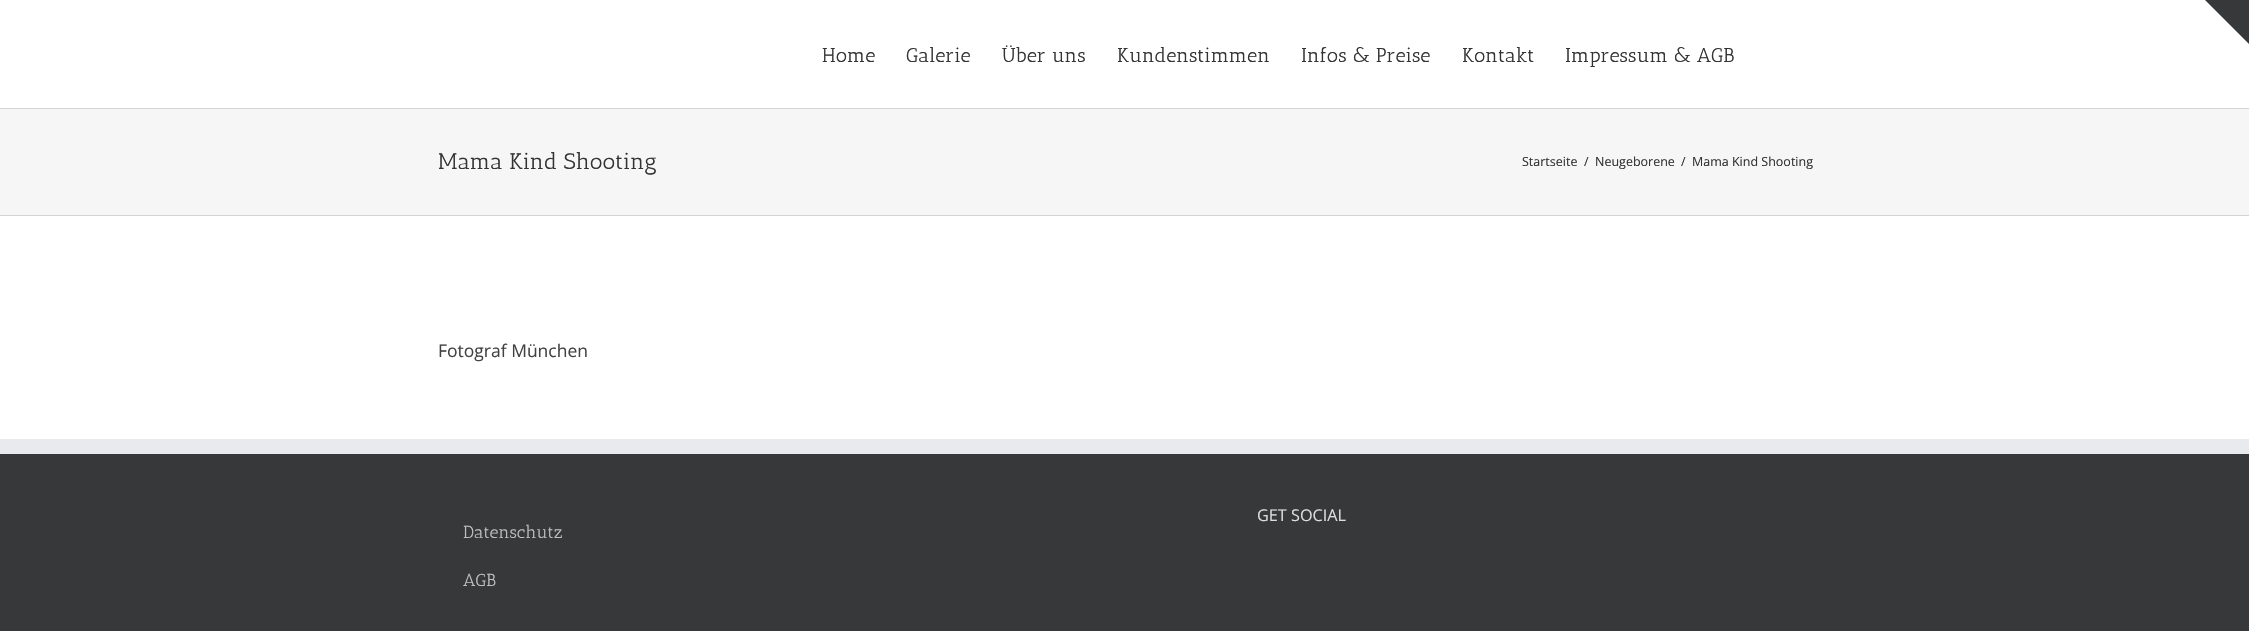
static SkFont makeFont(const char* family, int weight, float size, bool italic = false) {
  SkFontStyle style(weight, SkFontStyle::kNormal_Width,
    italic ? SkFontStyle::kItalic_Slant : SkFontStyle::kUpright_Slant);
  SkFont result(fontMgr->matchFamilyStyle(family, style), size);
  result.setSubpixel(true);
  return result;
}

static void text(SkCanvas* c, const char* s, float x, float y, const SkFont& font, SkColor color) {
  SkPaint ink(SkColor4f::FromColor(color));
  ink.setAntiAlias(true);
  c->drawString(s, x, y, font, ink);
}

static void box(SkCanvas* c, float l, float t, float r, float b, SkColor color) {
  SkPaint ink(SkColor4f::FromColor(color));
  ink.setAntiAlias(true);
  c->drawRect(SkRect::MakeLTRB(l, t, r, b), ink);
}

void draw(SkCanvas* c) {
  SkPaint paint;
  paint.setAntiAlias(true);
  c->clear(0xffffffff);
  paint.setColor(0xff363839);
  c->drawPath(SkPathBuilder().moveTo(2205, 0).lineTo(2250, 0).lineTo(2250, 45).close().detach(), paint);
  SkFont face1 = makeFont("Antic Slab", 400, 20);
  text(c, "Home", 822, 62, face1, 0xff333333);
  text(c, "Galerie", 906, 62, face1, 0xff333333);
  text(c, "Über uns", 1002, 62, face1, 0xff333333);
  text(c, "Kundenstimmen", 1117, 62, face1, 0xff333333);
  text(c, "Infos & Preise", 1301, 62, face1, 0xff333333);
  text(c, "Kontakt", 1462, 62, face1, 0xff333333);
  text(c, "Impressum & AGB", 1565, 62, face1, 0xff333333);
  box(c, 0, 109, 2249, 215, 0xfff6f6f6);
  box(c, 0, 108, 2249, 109, 0xffd2d3d4);
  box(c, 0, 215, 2249, 216, 0xffd2d3d4);
  SkFont face2 = makeFont("Antic Slab", 400, 22.5f);
  text(c, "Mama Kind Shooting", 438, 169, face2, 0xff333333);
  SkFont face3 = makeFont("Open Sans", 400, 12.5f);
  text(c, "Startseite", 1522, 166, face3, 0xff333333);
  text(c, "/", 1584, 166, face3, 0xff333333);
  text(c, "Neugeborene", 1595, 166, face3, 0xff333333);
  text(c, "/", 1681, 166, face3, 0xff333333);
  text(c, "Mama Kind Shooting", 1692, 166, face3, 0xff333333);
  SkFont face4 = makeFont("Open Sans", 400, 17.5f);
  text(c, "Fotograf München", 438, 357, face4, 0xff424242);
  box(c, 0, 454, 2249, 631, 0xff363839);
  box(c, 0, 439, 2249, 454, 0xffe9eaee);
  SkFont face5 = makeFont("Open Sans", 400, 16.25f);
  text(c, "GET SOCIAL", 1257, 521, face5, 0xffdddddd);
  SkFont face6 = makeFont("Antic Slab", 400, 17.5f);
  text(c, "Datenschutz", 463, 538, face6, 0xffbfbfbf);
  text(c, "AGB", 463, 586, face6, 0xffbfbfbf);
}
